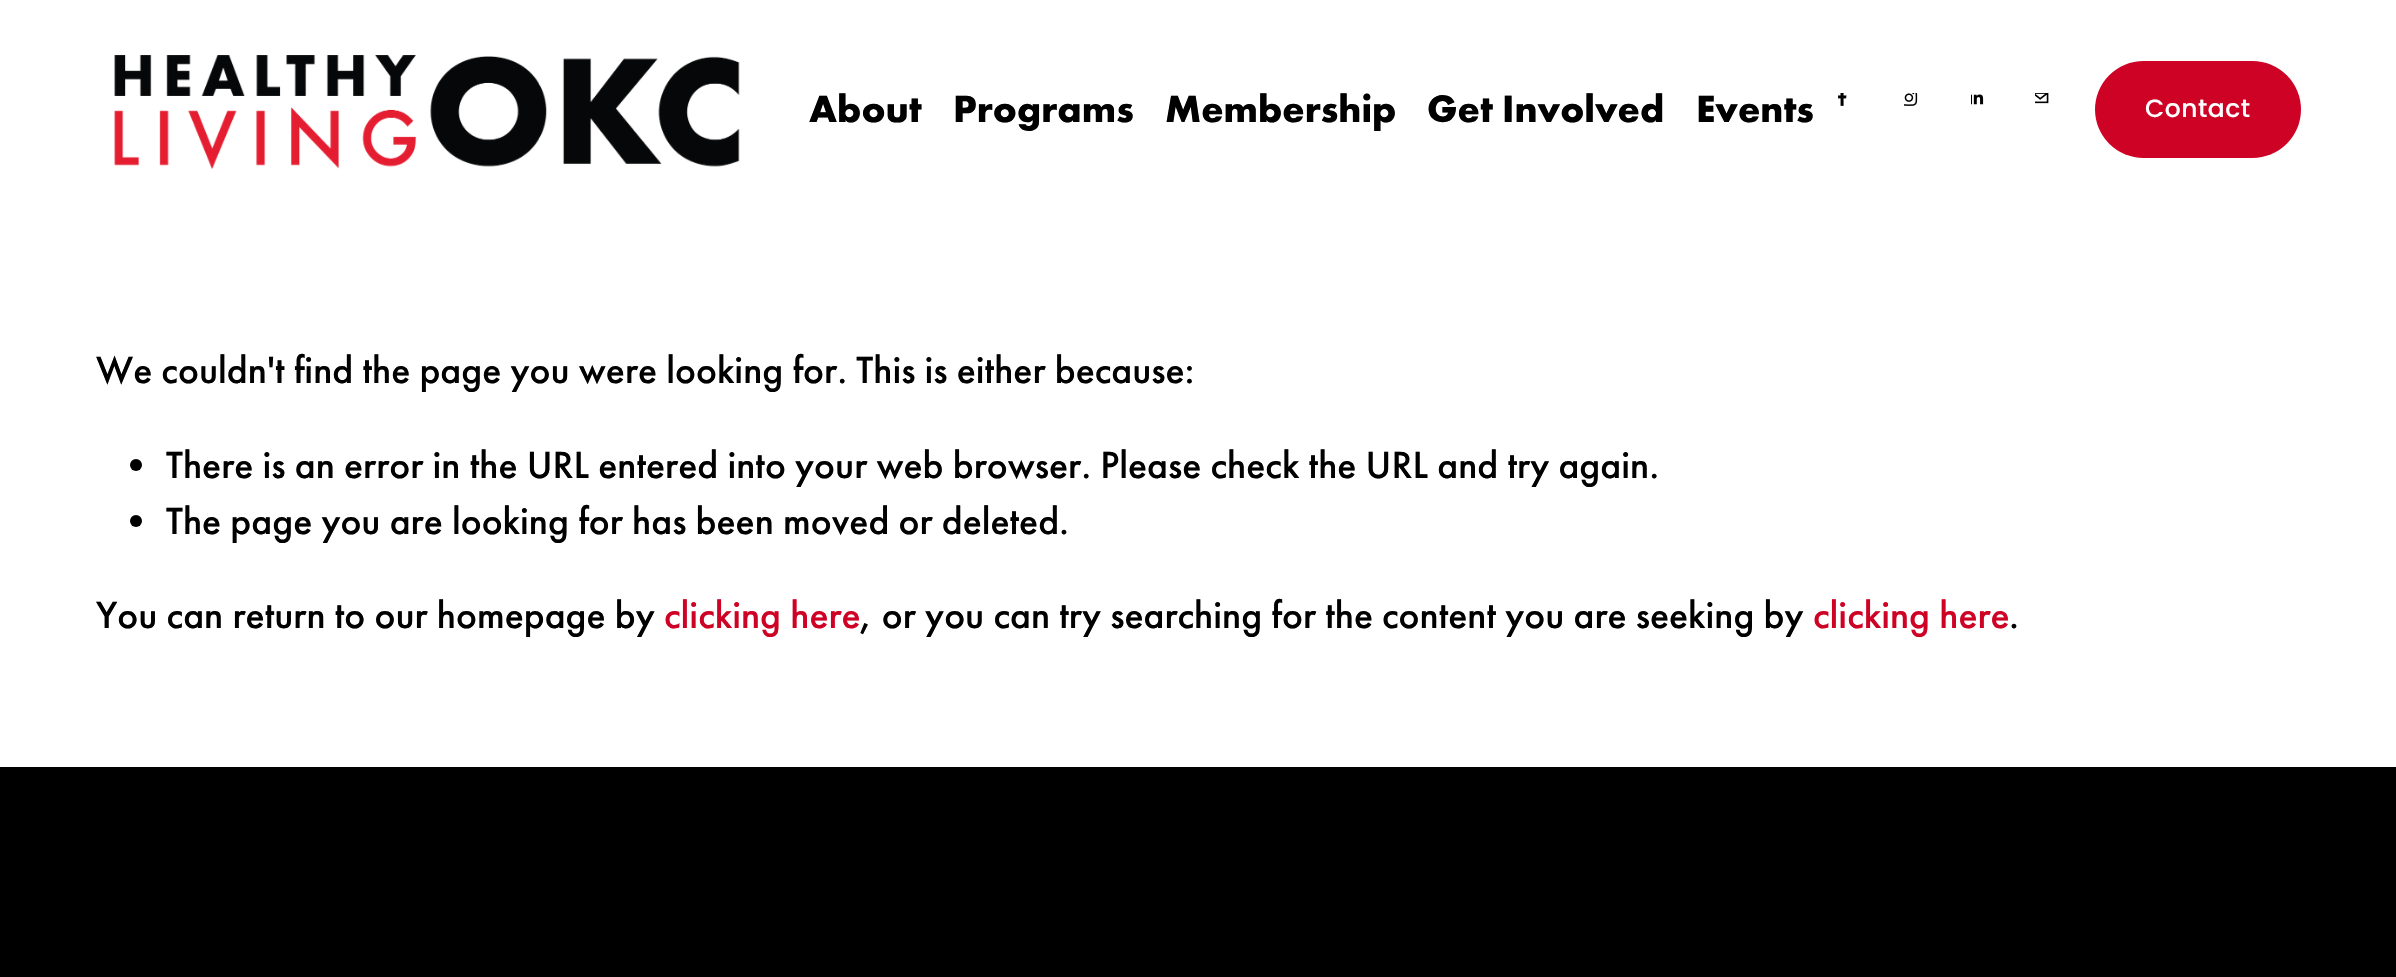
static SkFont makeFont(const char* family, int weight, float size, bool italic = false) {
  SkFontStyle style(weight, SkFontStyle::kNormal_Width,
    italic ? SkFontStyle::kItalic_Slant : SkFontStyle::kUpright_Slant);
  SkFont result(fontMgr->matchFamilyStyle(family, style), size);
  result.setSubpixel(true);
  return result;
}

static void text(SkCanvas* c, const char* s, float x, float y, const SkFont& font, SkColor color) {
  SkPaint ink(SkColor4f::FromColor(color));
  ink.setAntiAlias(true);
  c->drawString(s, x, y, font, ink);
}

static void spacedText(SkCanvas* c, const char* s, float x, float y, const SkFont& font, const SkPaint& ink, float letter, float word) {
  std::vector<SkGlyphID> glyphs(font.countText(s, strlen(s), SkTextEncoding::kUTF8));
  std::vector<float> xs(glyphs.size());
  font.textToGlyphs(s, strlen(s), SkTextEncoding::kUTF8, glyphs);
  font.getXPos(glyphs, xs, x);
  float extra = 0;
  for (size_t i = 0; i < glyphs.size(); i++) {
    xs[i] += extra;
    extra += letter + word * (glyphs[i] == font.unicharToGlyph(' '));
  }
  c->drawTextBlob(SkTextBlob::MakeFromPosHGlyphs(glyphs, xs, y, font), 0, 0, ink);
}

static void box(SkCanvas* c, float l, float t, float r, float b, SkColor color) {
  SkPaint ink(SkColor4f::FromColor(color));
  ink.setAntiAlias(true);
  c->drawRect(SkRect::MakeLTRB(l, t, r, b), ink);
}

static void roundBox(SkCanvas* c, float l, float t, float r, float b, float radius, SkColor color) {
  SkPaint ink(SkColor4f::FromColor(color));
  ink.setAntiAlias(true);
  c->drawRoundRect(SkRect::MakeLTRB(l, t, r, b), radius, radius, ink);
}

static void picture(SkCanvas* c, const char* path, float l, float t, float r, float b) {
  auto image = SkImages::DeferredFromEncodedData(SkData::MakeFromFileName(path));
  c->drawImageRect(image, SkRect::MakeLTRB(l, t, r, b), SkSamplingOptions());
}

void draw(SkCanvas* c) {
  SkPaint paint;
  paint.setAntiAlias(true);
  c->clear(0xffffffff);
  picture(c, "img_01.png", 114, 55, 740, 169);
  SkFont face1 = makeFont("Futura PT", 700, 39.5f);
  text(c, "About", 809, 122, face1, 0xff000000);
  text(c, "Programs", 953, 122, face1, 0xff000000);
  text(c, "Membership", 1165, 122, face1, 0xff000000);
  text(c, "Get Involved", 1427, 122, face1, 0xff000000);
  text(c, "Events", 1696, 122, face1, 0xff000000);
  picture(c, "img_02.png", 1838, 93, 1847, 106);
  picture(c, "img_03.png", 1904, 93, 1918, 106);
  picture(c, "img_04.png", 1971, 93, 1984, 105);
  picture(c, "img_05.png", 2035, 93, 2049, 104);
  roundBox(c, 2095, 61, 2301, 158, 48.5f, 0xffce0225);
  SkFont face2 = makeFont("Poppins", 500, 25);
  paint.setColor(0xffffffff);
  spacedText(c, "Contact", 2145, 117, face2, paint, 0.5f, 0);
  SkFont face3 = makeFont("Futura PT", 500, 39.5f);
  text(c, "We couldn't find the page you were looking for. This is either because:", 96, 383, face3, 0xff000000);
  paint.setColor(0xff000000);
  c->drawCircle(136, 465, 6, paint);
  text(c, "There is an error in the URL entered into your web browser. Please check the URL and try again.", 166, 478, face3, 0xff000000);
  c->drawCircle(136, 521, 6, paint);
  text(c, "The page you are looking for has been moved or deleted.", 166, 534, face3, 0xff000000);
  text(c, "You can return to our homepage by", 96, 628, face3, 0xff000000);
  text(c, "clicking here", 664, 628, face3, 0xffce0225);
  text(c, ", or you can try searching for the", 860, 628, face3, 0xff000000);
  text(c, "content you are seeking by", 1382, 628, face3, 0xff000000);
  text(c, "clicking here", 1813, 628, face3, 0xffce0225);
  text(c, ".", 2009, 628, face3, 0xff000000);
  box(c, 0, 767, 2396, 977, 0xff000000);
}
